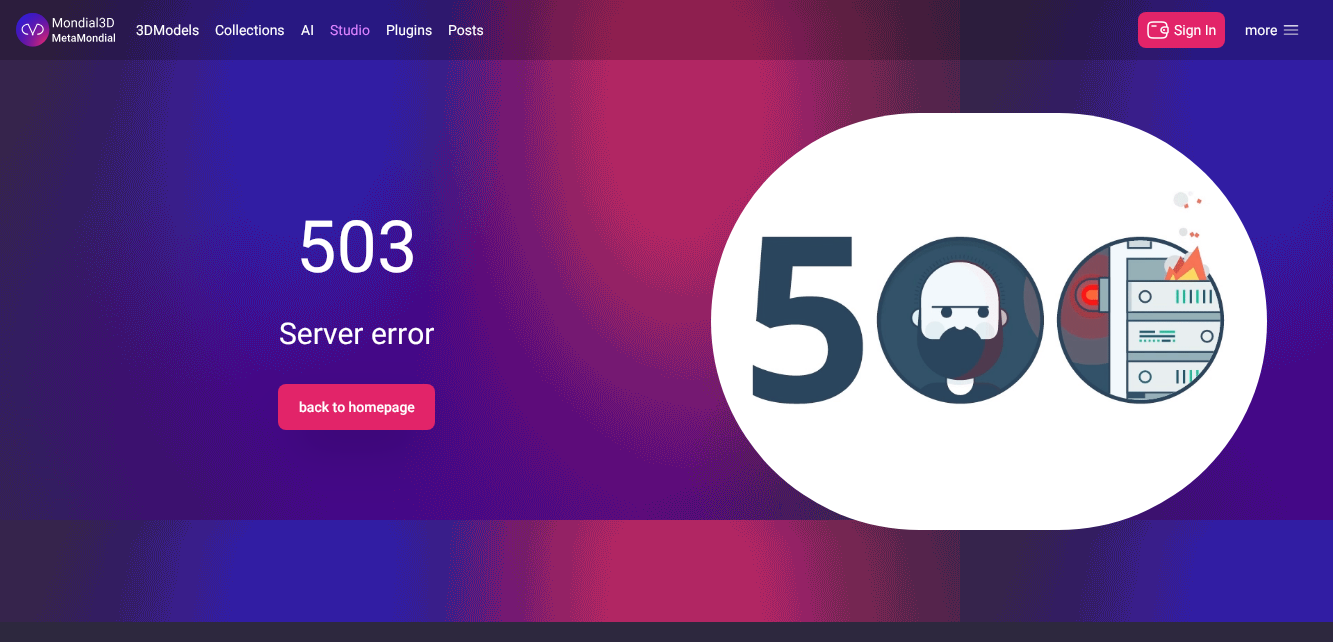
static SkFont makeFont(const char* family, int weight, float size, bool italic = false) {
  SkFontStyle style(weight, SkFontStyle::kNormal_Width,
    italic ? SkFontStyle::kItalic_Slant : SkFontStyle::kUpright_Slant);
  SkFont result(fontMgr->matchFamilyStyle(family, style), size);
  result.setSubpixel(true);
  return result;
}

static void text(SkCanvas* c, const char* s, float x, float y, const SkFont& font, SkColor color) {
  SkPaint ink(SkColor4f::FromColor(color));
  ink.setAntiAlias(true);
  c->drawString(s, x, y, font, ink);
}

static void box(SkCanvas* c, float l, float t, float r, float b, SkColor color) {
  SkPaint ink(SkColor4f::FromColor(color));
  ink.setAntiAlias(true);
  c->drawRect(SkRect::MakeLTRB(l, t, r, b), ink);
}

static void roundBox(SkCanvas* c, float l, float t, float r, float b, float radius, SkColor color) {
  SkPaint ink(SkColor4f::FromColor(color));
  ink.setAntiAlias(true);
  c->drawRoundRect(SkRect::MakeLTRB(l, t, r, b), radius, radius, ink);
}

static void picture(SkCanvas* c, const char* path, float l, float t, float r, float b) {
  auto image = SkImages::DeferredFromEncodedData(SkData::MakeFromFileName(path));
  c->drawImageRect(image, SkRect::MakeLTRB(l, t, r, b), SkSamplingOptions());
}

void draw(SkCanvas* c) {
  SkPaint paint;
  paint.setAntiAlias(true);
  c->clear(0xffffffff);
  picture(c, "img_04.png", 0, 0, 1333, 622);
  box(c, 0, 0, 1333, 60, 0x33000000);
  picture(c, "img_01.png", 16, 13, 115, 47);
  SkFont face1 = makeFont("Roboto", 400, 14);
  text(c, "3DModels", 136, 35, face1, 0xffffffff);
  text(c, "Collections", 215, 35, face1, 0xffffffff);
  text(c, "AI", 301, 35, face1, 0xffffffff);
  text(c, "Studio", 330, 35, face1, 0xffdb82ff);
  text(c, "Plugins", 386, 35, face1, 0xffffffff);
  text(c, "Posts", 448, 35, face1, 0xffffffff);
  roundBox(c, 1138, 12, 1225, 48, 8, 0xffe22469);
  picture(c, "img_02.png", 1147, 21, 1169, 39);
  text(c, "Sign In", 1174, 35, face1, 0xffffffff);
  text(c, "more", 1245, 35, face1, 0xffffffff);
  picture(c, "img_03.png", 1283, 25, 1299, 35);
  SkFont face2 = makeFont("Roboto", 400, 72);
  text(c, "503", 296, 272, face2, 0xffffffff);
  SkFont face3 = makeFont("Roboto", 400, 30);
  text(c, "Server error", 279, 344, face3, 0xffffffff);
  paint.setColor(0x40000000);
  paint.setMaskFilter(SkMaskFilter::MakeBlur(kNormal_SkBlurStyle, 25));
  c->drawRect(SkRect::MakeLTRB(290, 421, 423, 443), paint);
  paint.setMaskFilter(nullptr);
  roundBox(c, 278, 384, 435, 430, 8, 0xffe22469);
  SkFont face4 = makeFont("Roboto", 500, 14);
  text(c, "back to homepage", 299, 412, face4, 0xffffffff);
  picture(c, "img_05.png", 711, 113, 1267, 530);
  box(c, 0, 622, 1333, 642, 0xff2d283e);
}
